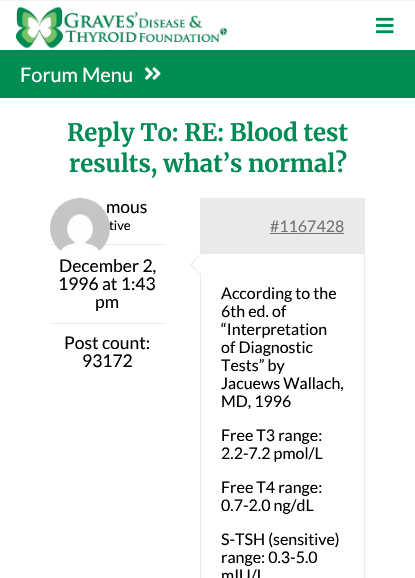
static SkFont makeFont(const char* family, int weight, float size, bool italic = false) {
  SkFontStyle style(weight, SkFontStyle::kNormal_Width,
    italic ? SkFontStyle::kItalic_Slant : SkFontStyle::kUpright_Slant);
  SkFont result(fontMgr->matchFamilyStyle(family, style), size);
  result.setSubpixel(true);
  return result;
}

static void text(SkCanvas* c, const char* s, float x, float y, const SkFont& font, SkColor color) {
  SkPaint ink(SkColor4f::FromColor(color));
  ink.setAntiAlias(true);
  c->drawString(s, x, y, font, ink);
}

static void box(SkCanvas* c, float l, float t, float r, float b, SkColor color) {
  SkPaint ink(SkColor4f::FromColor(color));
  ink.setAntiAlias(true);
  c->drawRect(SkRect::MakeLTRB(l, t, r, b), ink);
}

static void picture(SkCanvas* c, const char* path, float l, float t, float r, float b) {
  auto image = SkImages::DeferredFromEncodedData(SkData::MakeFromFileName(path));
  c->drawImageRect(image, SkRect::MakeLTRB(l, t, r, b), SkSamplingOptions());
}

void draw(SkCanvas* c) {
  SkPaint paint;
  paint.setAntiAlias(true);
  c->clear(0xffffffff);
  box(c, 0, 0, 415, 1, 0xfff1f6f9);
  picture(c, "img_01.png", 16, 6, 227, 49);
  picture(c, "img_02.png", 376, 17, 394, 34);
  box(c, 0, 50, 415, 98, 0xff008d52);
  SkFont face1 = makeFont("Lato", 400, 20);
  text(c, "Forum Menu", 20, 82, face1, 0xffffffff);
  picture(c, "img_03.png", 145, 67, 161, 80);
  SkFont face2 = makeFont("Merriweather", 300, 24);
  text(c, "Reply To: RE: Blood test", 67, 141, face2, 0xff008b55);
  text(c, "results, what’s normal?", 69, 172, face2, 0xff008b55);
  SkFont face3 = makeFont("Lato", 400, 17.5f);
  text(c, "mous", 106, 213, face3, 0xff000000);
  SkFont face4 = makeFont("Lato", 400, 13);
  text(c, "tive", 109, 230, face4, 0xff000000);
  box(c, 50, 244, 165, 245, 0xffebeaea);
  picture(c, "img_04.png", 50, 198, 110, 251);
  box(c, 50, 323, 165, 324, 0xffebeaea);
  text(c, "December 2,", 59, 272, face3, 0xff000000);
  text(c, "1996 at 1:43", 58, 290, face3, 0xff000000);
  text(c, "pm", 95, 308, face3, 0xff000000);
  text(c, "Post count:", 64, 349, face3, 0xff000000);
  text(c, "93172", 82, 367, face3, 0xff000000);
  paint.setStyle(SkPaint::kStroke_Style);
  paint.setStrokeWidth(1);
  paint.setColor(0xffebeaea);
  c->drawRect(SkRect::MakeLTRB(200.5f, 198.5f, 364.5f, 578.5f), paint);
  box(c, 201, 199, 364, 254, 0xffebeaea);
  SkFont face5 = makeFont("Lato", 400, 16);
  text(c, "#1167428", 270, 232, face5, 0xff747474);
  box(c, 270, 233, 344, 234, 0xff747474);
  paint.setStyle(SkPaint::kFill_Style);
  paint.setColor(0xffffffff);
  c->drawPath(SkPathBuilder().moveTo(200, 254.5f).lineTo(210, 264.5f).lineTo(200, 274).lineTo(190, 264.5f).close().detach(), paint);
  paint.setColor(0xffebeaea);
  c->drawPath(SkPathBuilder().moveTo(191, 263.5f).lineTo(200.5f, 273.5f).lineTo(200, 274).lineTo(190, 264.5f).close().detach(), paint);
  c->drawPath(SkPathBuilder().moveTo(200, 254.5f).lineTo(200.5f, 255).lineTo(191, 265).lineTo(190, 264.5f).close().detach(), paint);
  text(c, "According to the", 221, 299, face5, 0xff000000);
  text(c, "6th ed. of", 221, 317, face5, 0xff000000);
  text(c, "“Interpretation", 221, 335, face5, 0xff000000);
  text(c, "of Diagnostic", 221, 353, face5, 0xff000000);
  text(c, "Tests” by", 221, 371, face5, 0xff000000);
  text(c, "Jacuews Wallach,", 221, 389, face5, 0xff000000);
  text(c, "MD, 1996", 221, 407, face5, 0xff000000);
  text(c, "Free T3 range:", 221, 441, face5, 0xff000000);
  text(c, "2.2-7.2 pmol/L", 221, 459, face5, 0xff000000);
  text(c, "Free T4 range:", 221, 493, face5, 0xff000000);
  text(c, "0.7-2.0 ng/dL", 221, 511, face5, 0xff000000);
  text(c, "S-TSH (sensitive)", 221, 545, face5, 0xff000000);
  text(c, "range: 0.3-5.0", 221, 563, face5, 0xff000000);
  text(c, "mIU/L", 221, 581, face5, 0xff000000);
}
